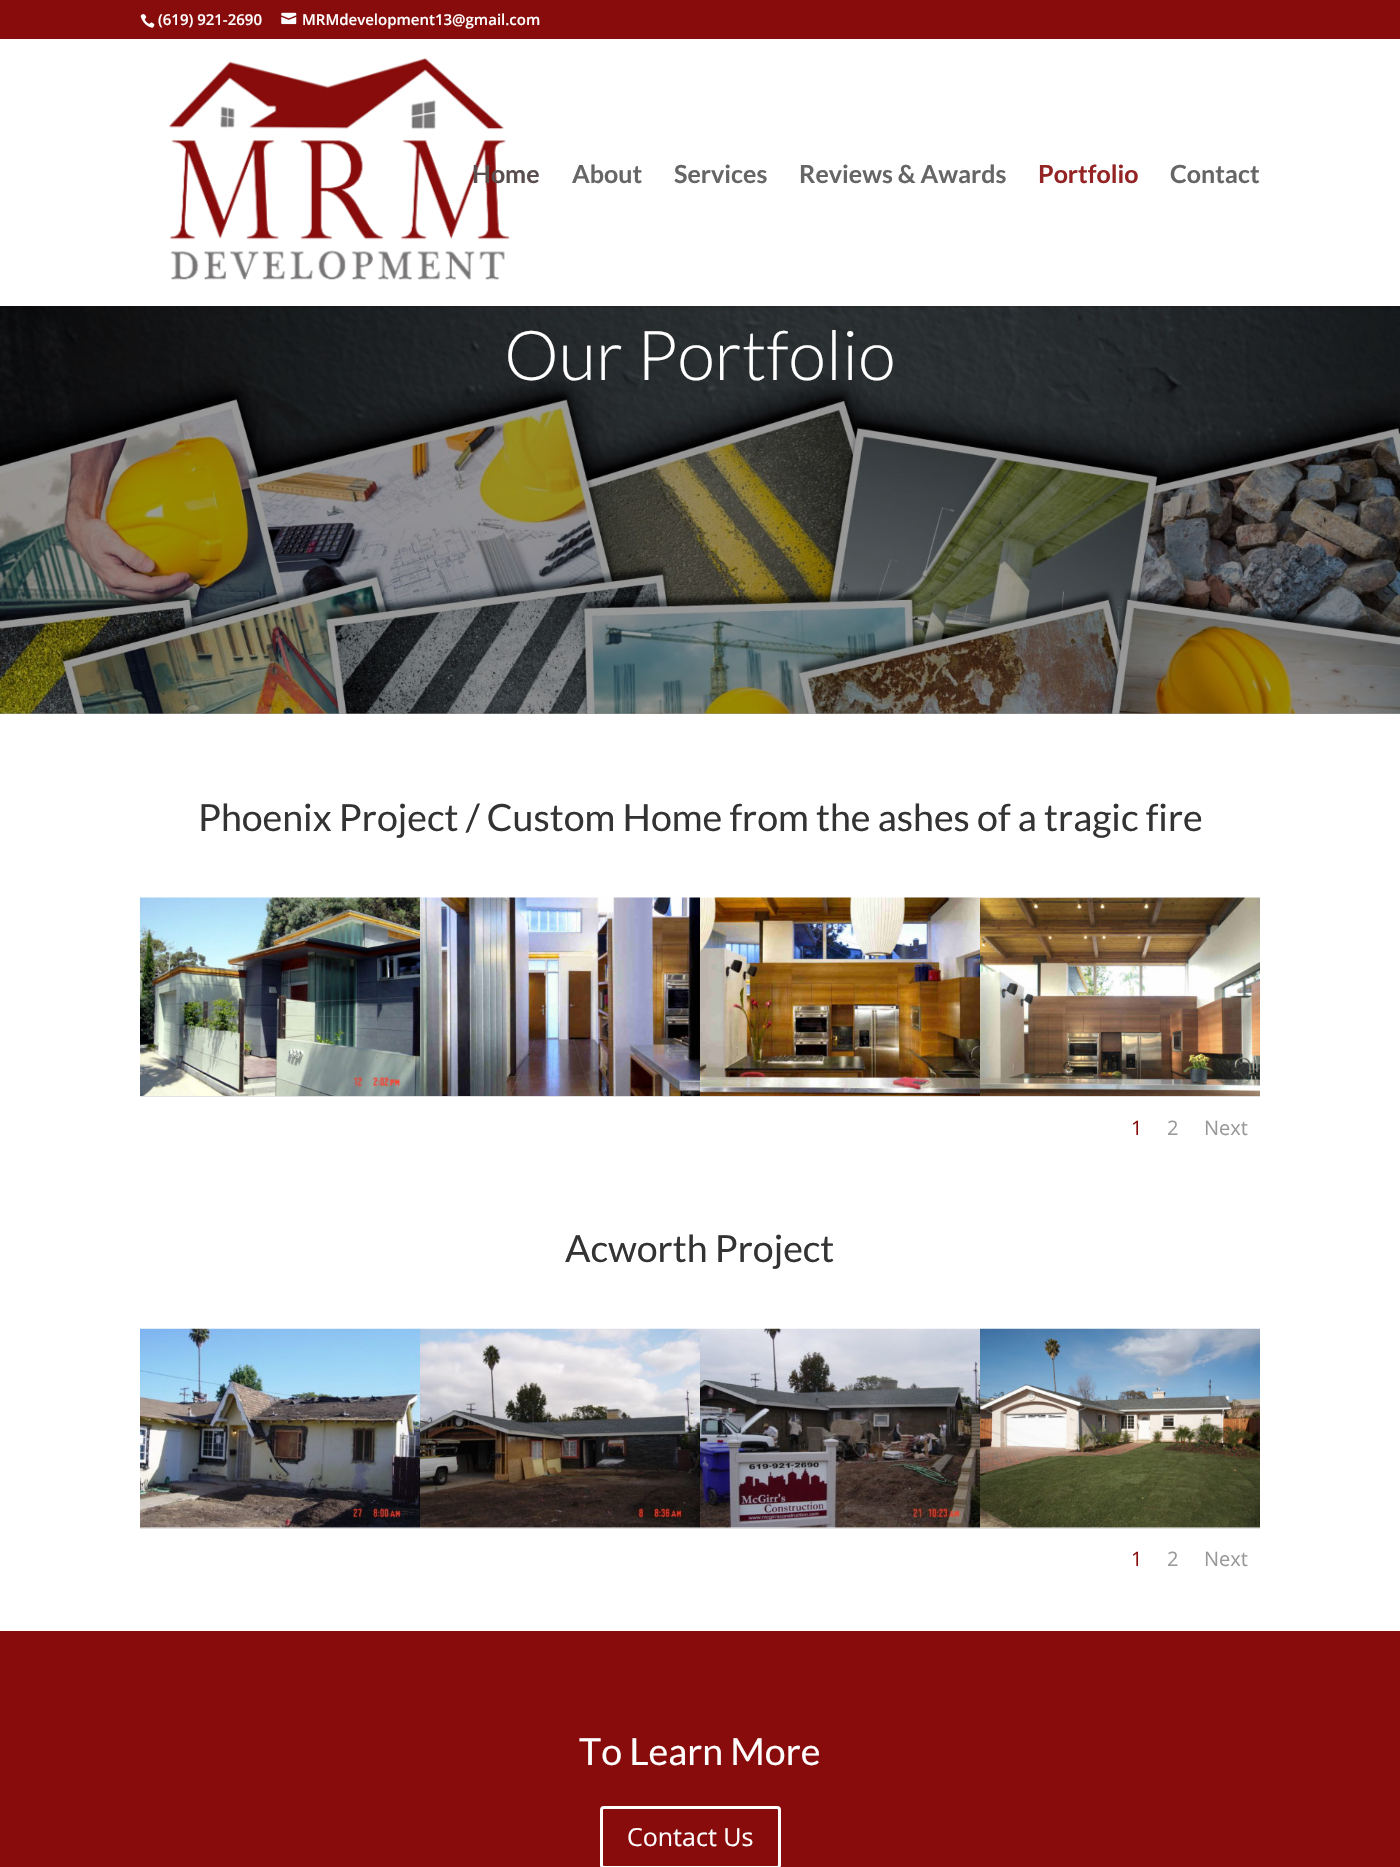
static SkFont makeFont(const char* family, int weight, float size, bool italic = false) {
  SkFontStyle style(weight, SkFontStyle::kNormal_Width,
    italic ? SkFontStyle::kItalic_Slant : SkFontStyle::kUpright_Slant);
  SkFont result(fontMgr->matchFamilyStyle(family, style), size);
  result.setSubpixel(true);
  return result;
}

static void text(SkCanvas* c, const char* s, float x, float y, const SkFont& font, SkColor color) {
  SkPaint ink(SkColor4f::FromColor(color));
  ink.setAntiAlias(true);
  c->drawString(s, x, y, font, ink);
}

static void box(SkCanvas* c, float l, float t, float r, float b, SkColor color) {
  SkPaint ink(SkColor4f::FromColor(color));
  ink.setAntiAlias(true);
  c->drawRect(SkRect::MakeLTRB(l, t, r, b), ink);
}

static void picture(SkCanvas* c, const char* path, float l, float t, float r, float b) {
  auto image = SkImages::DeferredFromEncodedData(SkData::MakeFromFileName(path));
  c->drawImageRect(image, SkRect::MakeLTRB(l, t, r, b), SkSamplingOptions());
}

void draw(SkCanvas* c) {
  SkPaint paint;
  paint.setAntiAlias(true);
  c->clear(0xffffffff);
  box(c, 0, 713, 1400, 714, 0xff999999);
  box(c, 0, 0, 1400, 39, 0xff880c0c);
  picture(c, "img_01.png", 140, 14, 155, 28);
  SkFont face1 = makeFont("Open Sans", 600, 15);
  text(c, "(619) 921-2690", 158, 25, face1, 0xffffffff);
  picture(c, "img_02.png", 281, 12, 297, 25);
  text(c, "MRMdevelopment13@gmail.com", 302, 25, face1, 0xffffffff);
  picture(c, "img_04.png", 0, 306, 1400, 714);
  box(c, 254, 306, 1400, 308, 0x1a000000);
  picture(c, "img_03.png", 169, 58, 510, 280);
  SkFont face2 = makeFont("Lato", 700, 25);
  text(c, "Home", 472, 183, face2, 0xff5a4e4e);
  text(c, "About", 572, 183, face2, 0xff666666);
  text(c, "Services", 674, 183, face2, 0xff666666);
  text(c, "Reviews & Awards", 799, 183, face2, 0xff666666);
  text(c, "Portfolio", 1038, 183, face2, 0xff942323);
  text(c, "Contact", 1170, 183, face2, 0xff666666);
  SkFont face3 = makeFont("Lato", 300, 68.75f);
  text(c, "Our Portfolio", 504, 380, face3, 0xffffffff);
  SkFont face4 = makeFont("Lato", 400, 37.5f);
  text(c, "Phoenix Project / Custom Home from the ashes of a tragic fire", 198, 831, face4, 0xff333333);
  picture(c, "img_05.png", 140, 897, 420, 1096);
  picture(c, "img_06.png", 420, 897, 700, 1096);
  picture(c, "img_07.png", 700, 897, 980, 1096);
  picture(c, "img_08.png", 980, 897, 1260, 1096);
  box(c, 140, 1096, 1260, 1097, 0xffe2e2e2);
  SkFont face5 = makeFont("Open Sans", 400, 20);
  text(c, "1", 1131, 1135, face5, 0xff880c0c);
  text(c, "2", 1167, 1135, face5, 0xff999999);
  text(c, "Next", 1204, 1135, face5, 0xff999999);
  text(c, "Acworth Project", 565, 1262, face4, 0xff333333);
  picture(c, "img_09.png", 140, 1328, 420, 1528);
  picture(c, "img_10.png", 420, 1328, 700, 1528);
  picture(c, "img_11.png", 700, 1328, 980, 1528);
  picture(c, "img_12.png", 980, 1328, 1260, 1528);
  box(c, 140, 1528, 1260, 1529, 0xffe2e2e2);
  text(c, "1", 1131, 1566, face5, 0xff880c0c);
  text(c, "2", 1167, 1566, face5, 0xff999999);
  text(c, "Next", 1204, 1566, face5, 0xff999999);
  box(c, 0, 1631, 1400, 1867, 0xff880c0c);
  text(c, "To Learn More", 579, 1765, face4, 0xffffffff);
  paint.setStyle(SkPaint::kStroke_Style);
  paint.setStrokeWidth(3);
  paint.setColor(0xffffffff);
  c->drawRoundRect(SkRect::MakeLTRB(601.5f, 1807.5f, 779.5f, 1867.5f), 2.5f, 2.5f, paint);
  SkFont face6 = makeFont("Open Sans", 400, 25);
  text(c, "Contact Us", 627, 1846, face6, 0xffffffff);
}
